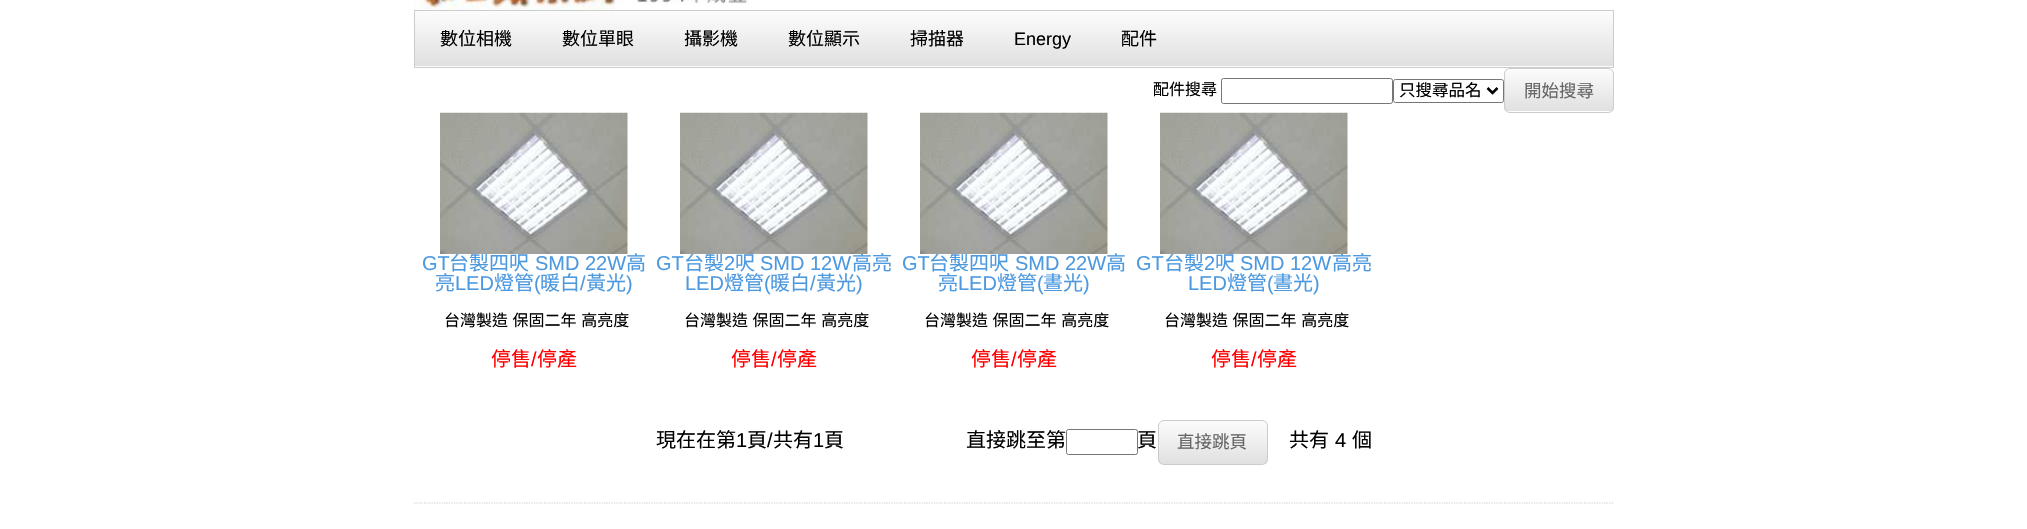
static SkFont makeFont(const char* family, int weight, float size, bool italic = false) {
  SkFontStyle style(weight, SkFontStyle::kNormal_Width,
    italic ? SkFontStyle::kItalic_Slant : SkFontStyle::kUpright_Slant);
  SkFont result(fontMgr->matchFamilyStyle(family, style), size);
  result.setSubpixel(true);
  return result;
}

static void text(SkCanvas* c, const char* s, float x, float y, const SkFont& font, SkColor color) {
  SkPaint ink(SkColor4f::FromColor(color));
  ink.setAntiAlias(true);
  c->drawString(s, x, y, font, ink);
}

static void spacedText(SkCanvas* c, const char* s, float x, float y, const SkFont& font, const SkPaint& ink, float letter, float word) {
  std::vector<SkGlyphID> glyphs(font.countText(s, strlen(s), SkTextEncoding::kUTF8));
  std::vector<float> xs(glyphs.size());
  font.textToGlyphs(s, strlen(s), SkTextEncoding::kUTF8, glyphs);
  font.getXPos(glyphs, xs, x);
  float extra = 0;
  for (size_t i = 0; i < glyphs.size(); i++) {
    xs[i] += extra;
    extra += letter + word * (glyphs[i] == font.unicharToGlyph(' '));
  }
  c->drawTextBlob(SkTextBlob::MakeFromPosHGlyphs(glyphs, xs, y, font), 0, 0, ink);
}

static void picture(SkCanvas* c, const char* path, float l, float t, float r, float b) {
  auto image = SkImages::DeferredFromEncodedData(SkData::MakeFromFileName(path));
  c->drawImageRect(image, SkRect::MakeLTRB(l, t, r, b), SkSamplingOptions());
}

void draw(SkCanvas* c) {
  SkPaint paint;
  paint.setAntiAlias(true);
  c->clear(0xffffffff);
  picture(c, "img_01.png", 414, 0, 749, 10);
  {
    const SkColor colors[] = {0xfffcfcfc, 0xffe0e0e0};
    const float stops[] = {0, 1};
    const SkPoint ends[] = {{1014, 11}, {1014, 66}};
    paint.setShader(SkGradientShader::MakeLinear(ends, colors, stops, 2, SkTileMode::kClamp));
    paint.setAlpha(255);
  }
  c->drawRect(SkRect::MakeLTRB(415, 11, 1613, 66), paint);
  {
    const SkColor colors[] = {0xfffcfcfc, 0xffe0e0e0};
    const float stops[] = {0, 1};
    const SkPoint ends[] = {{1014, 66}, {1014, 121}};
    paint.setShader(SkGradientShader::MakeLinear(ends, colors, stops, 2, SkTileMode::kClamp));
    paint.setAlpha(255);
  }
  c->drawRect(SkRect::MakeLTRB(414, 66, 1614, 67), paint);
  paint.setStyle(SkPaint::kStroke_Style);
  paint.setStrokeWidth(1);
  paint.setShader(nullptr);
  paint.setColor(0xffcccccc);
  c->drawRect(SkRect::MakeLTRB(414.5f, 10.5f, 1613.5f, 67.5f), paint);
  SkFont face1 = makeFont("Noto Sans CJK TC", 400, 18);
  text(c, "數位相機", 440, 45, face1, 0xff000000);
  text(c, "數位單眼", 562, 45, face1, 0xff000000);
  text(c, "攝影機", 684, 45, face1, 0xff000000);
  text(c, "數位顯示", 788, 45, face1, 0xff000000);
  text(c, "掃描器", 910, 45, face1, 0xff000000);
  SkFont face2 = makeFont("Liberation Sans", 400, 18);
  text(c, "Energy", 1014, 45, face2, 0xff000000);
  text(c, "配件", 1121, 45, face1, 0xff000000);
  SkFont face3 = makeFont("Noto Sans CJK TC", 400, 16);
  text(c, "配件搜尋", 1153, 95, face3, 0xff000000);
  paint.setColor(0xff767676);
  c->drawRoundRect(SkRect::MakeLTRB(1221.5f, 78.5f, 1392.5f, 103.5f), 2, 2, paint);
  c->drawRoundRect(SkRect::MakeLTRB(1393.5f, 79.5f, 1503.5f, 102.5f), 2, 2, paint);
  paint.setStrokeWidth(2.5f);
  paint.setColor(0xff000000);
  c->drawPath(SkPathBuilder().moveTo(1487.5f, 88).lineTo(1492.5f, 93).lineTo(1497.5f, 88).detach(), paint);
  SkFont face4 = makeFont("Noto Sans CJK TC", 400, 16.5f);
  text(c, "只搜尋品名", 1399, 96, face4, 0xff000000);
  c->save();
  c->clipPath(SkPathBuilder().moveTo(1510, 68).lineTo(1608, 68).cubicTo(1611.5f, 68, 1614, 70.5f, 1614, 74).lineTo(1614, 107).cubicTo(1614, 110.5f, 1611.5f, 113, 1608, 113).lineTo(1510, 113).cubicTo(1506.5f, 113, 1504, 110.5f, 1504, 107).lineTo(1504, 74).cubicTo(1504, 70.5f, 1506.5f, 68, 1510, 68).close().detach(), true);
  paint.setStyle(SkPaint::kFill_Style);
  {
    const SkColor colors[] = {0xfffcfcfc, 0xffe0e0e0};
    const float stops[] = {0, 1};
    const SkPoint ends[] = {{1559, 69}, {1559, 111}};
    paint.setShader(SkGradientShader::MakeLinear(ends, colors, stops, 2, SkTileMode::kClamp));
    paint.setAlpha(255);
  }
  c->drawRect(SkRect::MakeLTRB(1504, 69, 1614, 111), paint);
  {
    const SkColor colors[] = {0xfffcfcfc, 0xffe0e0e0};
    const float stops[] = {0, 1};
    const SkPoint ends[] = {{1559, 111}, {1559, 154}};
    paint.setShader(SkGradientShader::MakeLinear(ends, colors, stops, 2, SkTileMode::kClamp));
    paint.setAlpha(255);
  }
  c->drawRect(SkRect::MakeLTRB(1504, 111, 1614, 113), paint);
  c->restore();
  paint.setStyle(SkPaint::kStroke_Style);
  paint.setStrokeWidth(1);
  paint.setShader(nullptr);
  paint.setColor(0xffcccccc);
  c->drawRoundRect(SkRect::MakeLTRB(1504.5f, 68.5f, 1613.5f, 112.5f), 5.5f, 5.5f, paint);
  SkFont face5 = makeFont("Noto Sans CJK TC", 400, 17.5f);
  text(c, "開始搜尋", 1524, 97, face5, 0xff666666);
  SkFont face6 = makeFont("Noto Sans CJK TC", 400, 20);
  text(c, "台製四呎", 449, 270, face6, 0xff4d99e0);
  text(c, "高", 626, 270, face6, 0xff4d99e0);
  picture(c, "img_02.png", 440, 112, 628, 254);
  SkFont face7 = makeFont("Liberation Sans", 400, 20);
  text(c, "GT", 422, 270, face7, 0xff4d99e0);
  text(c, "SMD 22W", 535, 270, face7, 0xff4d99e0);
  text(c, "亮", 435, 290, face6, 0xff4d99e0);
  text(c, "LED", 455, 290, face7, 0xff4d99e0);
  text(c, "燈管", 494, 290, face6, 0xff4d99e0);
  text(c, "(", 534, 290, face7, 0xff4d99e0);
  text(c, "暖白", 540, 290, face6, 0xff4d99e0);
  text(c, "/", 580, 290, face7, 0xff4d99e0);
  text(c, "黃光", 586, 290, face6, 0xff4d99e0);
  text(c, ")", 626, 290, face7, 0xff4d99e0);
  paint.setStyle(SkPaint::kFill_Style);
  paint.setColor(0xff000000);
  spacedText(c, "台灣製造 保固二年 高亮度", 444, 326, face3, paint, 0, 1);
  text(c, "停售", 491, 366, face6, 0xffff0000);
  text(c, "/", 531, 366, face7, 0xffff0000);
  text(c, "停產", 537, 366, face6, 0xffff0000);
  text(c, "台製", 684, 270, face6, 0xff4d99e0);
  text(c, "高亮", 852, 270, face6, 0xff4d99e0);
  picture(c, "img_02.png", 680, 112, 868, 254);
  text(c, "GT", 656, 270, face7, 0xff4d99e0);
  text(c, "2", 724, 270, face7, 0xff4d99e0);
  text(c, "呎", 735, 270, face6, 0xff4d99e0);
  text(c, "SMD 12W", 760, 270, face7, 0xff4d99e0);
  text(c, "LED", 685, 290, face7, 0xff4d99e0);
  text(c, "燈管", 724, 290, face6, 0xff4d99e0);
  text(c, "(", 764, 290, face7, 0xff4d99e0);
  text(c, "暖白", 770, 290, face6, 0xff4d99e0);
  text(c, "/", 810, 290, face7, 0xff4d99e0);
  text(c, "黃光", 816, 290, face6, 0xff4d99e0);
  text(c, ")", 856, 290, face7, 0xff4d99e0);
  spacedText(c, "台灣製造 保固二年 高亮度", 684, 326, face3, paint, 0, 1);
  text(c, "停售", 731, 366, face6, 0xffff0000);
  text(c, "/", 771, 366, face7, 0xffff0000);
  text(c, "停產", 777, 366, face6, 0xffff0000);
  text(c, "台製四呎", 929, 270, face6, 0xff4d99e0);
  text(c, "高", 1106, 270, face6, 0xff4d99e0);
  picture(c, "img_02.png", 920, 112, 1108, 254);
  text(c, "GT", 902, 270, face7, 0xff4d99e0);
  text(c, "SMD 22W", 1015, 270, face7, 0xff4d99e0);
  text(c, "亮", 938, 290, face6, 0xff4d99e0);
  text(c, "LED", 958, 290, face7, 0xff4d99e0);
  text(c, "燈管", 997, 290, face6, 0xff4d99e0);
  text(c, "(", 1037, 290, face7, 0xff4d99e0);
  text(c, "晝光", 1043, 290, face6, 0xff4d99e0);
  text(c, ")", 1083, 290, face7, 0xff4d99e0);
  spacedText(c, "台灣製造 保固二年 高亮度", 924, 326, face3, paint, 0, 1);
  text(c, "停售", 971, 366, face6, 0xffff0000);
  text(c, "/", 1011, 366, face7, 0xffff0000);
  text(c, "停產", 1017, 366, face6, 0xffff0000);
  text(c, "台製", 1164, 270, face6, 0xff4d99e0);
  text(c, "高亮", 1332, 270, face6, 0xff4d99e0);
  picture(c, "img_02.png", 1160, 112, 1348, 254);
  text(c, "GT", 1136, 270, face7, 0xff4d99e0);
  text(c, "2", 1204, 270, face7, 0xff4d99e0);
  text(c, "呎", 1215, 270, face6, 0xff4d99e0);
  text(c, "SMD 12W", 1240, 270, face7, 0xff4d99e0);
  text(c, "LED", 1188, 290, face7, 0xff4d99e0);
  text(c, "燈管", 1227, 290, face6, 0xff4d99e0);
  text(c, "(", 1267, 290, face7, 0xff4d99e0);
  text(c, "晝光", 1273, 290, face6, 0xff4d99e0);
  text(c, ")", 1313, 290, face7, 0xff4d99e0);
  spacedText(c, "台灣製造 保固二年 高亮度", 1164, 326, face3, paint, 0, 1);
  text(c, "停售", 1211, 366, face6, 0xffff0000);
  text(c, "/", 1251, 366, face7, 0xffff0000);
  text(c, "停產", 1257, 366, face6, 0xffff0000);
  text(c, "現在在第", 656, 447, face6, 0xff000000);
  text(c, "1", 736, 447, face7, 0xff000000);
  text(c, "頁", 747, 447, face6, 0xff000000);
  text(c, "/", 767, 447, face7, 0xff000000);
  text(c, "共有", 773, 447, face6, 0xff000000);
  text(c, "1", 813, 447, face7, 0xff000000);
  text(c, "頁", 824, 447, face6, 0xff000000);
  text(c, "直接跳至第", 966, 447, face6, 0xff000000);
  paint.setStyle(SkPaint::kStroke_Style);
  paint.setColor(0xff767676);
  c->drawRoundRect(SkRect::MakeLTRB(1066.5f, 429.5f, 1137.5f, 454.5f), 2, 2, paint);
  text(c, "頁", 1137, 447, face6, 0xff000000);
  c->save();
  c->clipPath(SkPathBuilder().moveTo(1164, 420).lineTo(1262, 420).cubicTo(1265.5f, 420, 1268, 422.5f, 1268, 426).lineTo(1268, 459).cubicTo(1268, 462.5f, 1265.5f, 465, 1262, 465).lineTo(1164, 465).cubicTo(1160.5f, 465, 1158, 462.5f, 1158, 459).lineTo(1158, 426).cubicTo(1158, 422.5f, 1160.5f, 420, 1164, 420).close().detach(), true);
  paint.setStyle(SkPaint::kFill_Style);
  {
    const SkColor colors[] = {0xfffcfcfc, 0xffe0e0e0};
    const float stops[] = {0, 1};
    const SkPoint ends[] = {{1213, 421}, {1213, 464}};
    paint.setShader(SkGradientShader::MakeLinear(ends, colors, stops, 2, SkTileMode::kClamp));
    paint.setAlpha(255);
  }
  c->drawRect(SkRect::MakeLTRB(1158, 421, 1268, 464), paint);
  c->restore();
  paint.setStyle(SkPaint::kStroke_Style);
  paint.setShader(nullptr);
  paint.setColor(0xffcccccc);
  c->drawRoundRect(SkRect::MakeLTRB(1158.5f, 420.5f, 1267.5f, 464.5f), 5.5f, 5.5f, paint);
  text(c, "直接跳頁", 1177, 448, face5, 0xff666666);
  text(c, "共有", 1289, 447, face6, 0xff000000);
  text(c, "4", 1335, 447, face7, 0xff000000);
  text(c, "個", 1352, 447, face6, 0xff000000);
  paint.setStrokeWidth(1.2f);
  paint.setPathEffect(SkDashPathEffect::Make({{1.25f, 1.25f}}, 0));
  c->drawPath(SkPathBuilder().moveTo(414, 503).lineTo(1614, 503).detach(), paint);
  paint.setPathEffect(nullptr);
}
